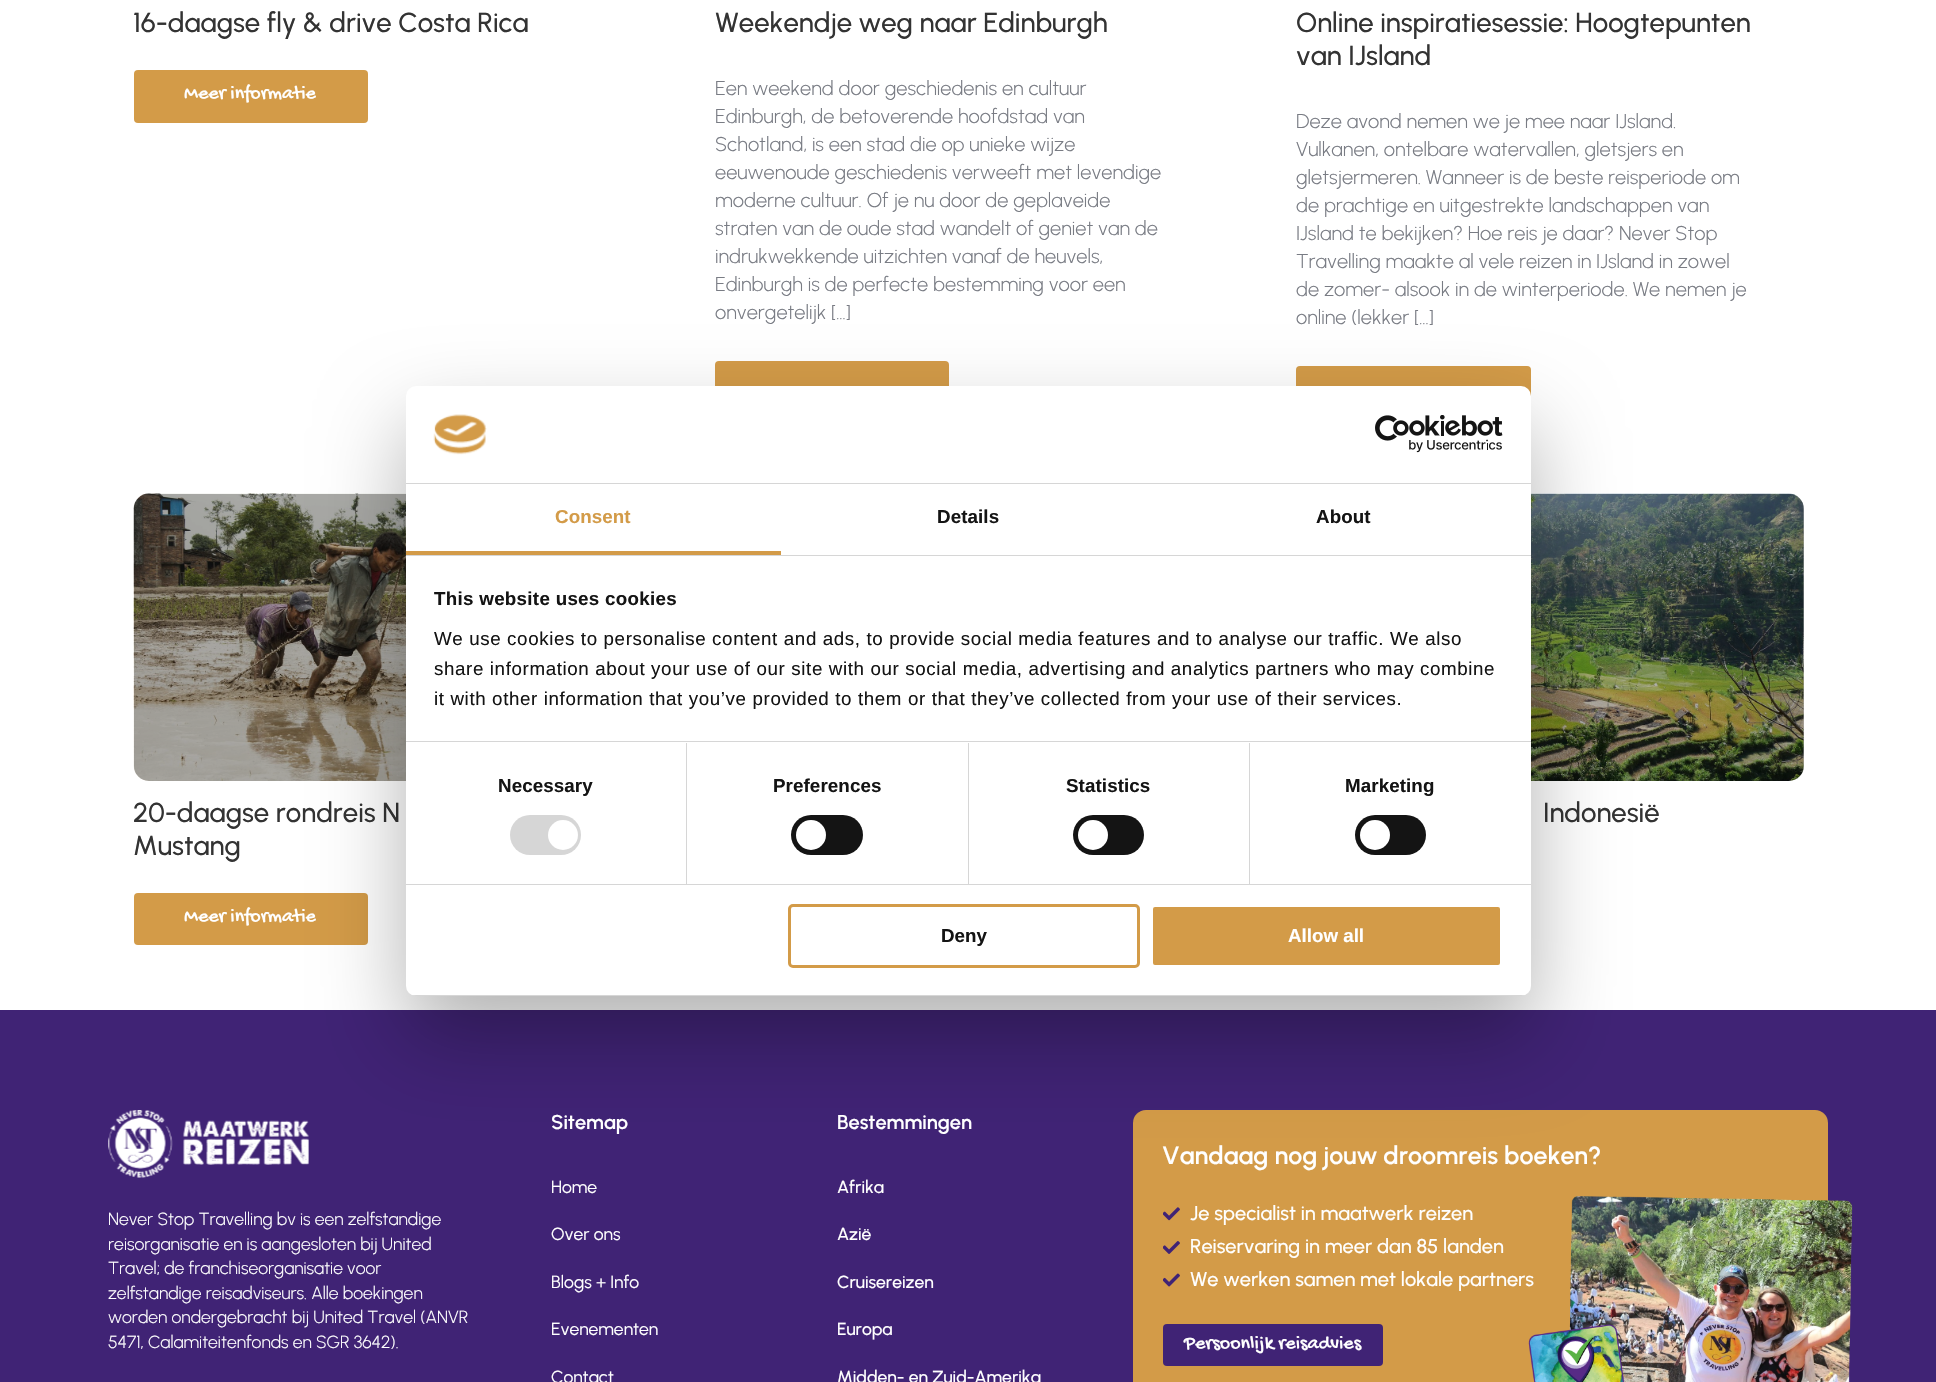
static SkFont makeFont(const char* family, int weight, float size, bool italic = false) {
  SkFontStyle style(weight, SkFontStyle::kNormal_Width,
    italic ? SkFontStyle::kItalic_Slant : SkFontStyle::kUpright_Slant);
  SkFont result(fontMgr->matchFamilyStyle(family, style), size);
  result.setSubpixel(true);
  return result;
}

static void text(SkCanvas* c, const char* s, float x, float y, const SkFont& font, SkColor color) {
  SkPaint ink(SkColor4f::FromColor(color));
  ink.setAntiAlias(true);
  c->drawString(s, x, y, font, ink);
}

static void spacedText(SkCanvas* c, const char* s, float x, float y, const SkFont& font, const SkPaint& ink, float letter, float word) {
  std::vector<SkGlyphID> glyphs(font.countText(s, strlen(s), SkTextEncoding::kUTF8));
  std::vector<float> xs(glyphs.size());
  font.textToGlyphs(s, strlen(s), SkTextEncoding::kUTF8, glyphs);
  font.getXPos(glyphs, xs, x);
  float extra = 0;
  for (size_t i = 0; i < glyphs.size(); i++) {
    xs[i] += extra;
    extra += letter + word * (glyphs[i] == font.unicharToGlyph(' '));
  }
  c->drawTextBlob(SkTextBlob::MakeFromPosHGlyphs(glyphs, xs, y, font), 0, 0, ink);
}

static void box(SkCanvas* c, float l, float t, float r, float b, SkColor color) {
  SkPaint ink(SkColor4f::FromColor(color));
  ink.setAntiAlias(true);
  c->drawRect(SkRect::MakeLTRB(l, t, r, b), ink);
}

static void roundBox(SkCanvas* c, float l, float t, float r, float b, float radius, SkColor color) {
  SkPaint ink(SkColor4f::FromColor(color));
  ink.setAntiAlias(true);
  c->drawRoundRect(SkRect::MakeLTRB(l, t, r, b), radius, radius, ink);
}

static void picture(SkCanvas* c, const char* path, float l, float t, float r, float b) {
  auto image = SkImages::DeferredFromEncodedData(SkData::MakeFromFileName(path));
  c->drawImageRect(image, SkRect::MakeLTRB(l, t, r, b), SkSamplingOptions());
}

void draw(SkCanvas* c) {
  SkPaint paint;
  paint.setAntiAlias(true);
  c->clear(0xffffffff);
  SkFont face1 = makeFont("Urbanist", 500, 27.5f);
  text(c, "16-daagse fly & drive Costa Rica", 133, 32, face1, 0xff333333);
  roundBox(c, 134, 70, 368, 123, 4, 0xffd39b48);
  SkFont face2 = makeFont("Gochi Hand", 400, 20);
  text(c, "Meer informatie", 184, 98, face2, 0xffffffff);
  text(c, "Weekendje weg naar Edinburgh", 715, 32, face1, 0xff333333);
  SkFont face3 = makeFont("Urbanist", 300, 20);
  text(c, "Een weekend door geschiedenis en cultuur", 715, 95, face3, 0xff797c84);
  text(c, "Edinburgh, de betoverende hoofdstad van", 715, 123, face3, 0xff797c84);
  text(c, "Schotland, is een stad die op unieke wijze", 715, 151, face3, 0xff797c84);
  text(c, "eeuwenoude geschiedenis verweeft met levendige", 715, 179, face3, 0xff797c84);
  text(c, "moderne cultuur. Of je nu door de geplaveide", 715, 207, face3, 0xff797c84);
  text(c, "straten van de oude stad wandelt of geniet van de", 715, 235, face3, 0xff797c84);
  text(c, "indrukwekkende uitzichten vanaf de heuvels,", 715, 263, face3, 0xff797c84);
  text(c, "Edinburgh is de perfecte bestemming voor een", 715, 291, face3, 0xff797c84);
  text(c, "onvergetelijk […]", 715, 319, face3, 0xff797c84);
  roundBox(c, 715, 361, 949, 414, 4, 0xffd39b48);
  text(c, "Online inspiratiesessie: Hoogtepunten", 1296, 32, face1, 0xff333333);
  text(c, "van IJsland", 1296, 65, face1, 0xff333333);
  text(c, "Deze avond nemen we je mee naar IJsland.", 1296, 128, face3, 0xff797c84);
  text(c, "Vulkanen, ontelbare watervallen, gletsjers en", 1296, 156, face3, 0xff797c84);
  text(c, "gletsjermeren. Wanneer is de beste reisperiode om", 1296, 184, face3, 0xff797c84);
  text(c, "de prachtige en uitgestrekte landschappen van", 1296, 212, face3, 0xff797c84);
  text(c, "IJsland te bekijken? Hoe reis je daar? Never Stop", 1296, 240, face3, 0xff797c84);
  text(c, "Travelling maakte al vele reizen in IJsland in zowel", 1296, 268, face3, 0xff797c84);
  text(c, "de zomer- alsook in de winterperiode. We nemen je", 1296, 296, face3, 0xff797c84);
  text(c, "online (lekker […]", 1296, 324, face3, 0xff797c84);
  roundBox(c, 1296, 366, 1531, 419, 4, 0xffd39b48);
  picture(c, "img_01.png", 133, 493, 406, 781);
  roundBox(c, 134, 494, 640, 781, 15, 0x4d000000);
  text(c, "20-daagse rondreis N", 133, 822, face1, 0xff333333);
  text(c, "Mustang", 133, 855, face1, 0xff333333);
  roundBox(c, 134, 893, 368, 945, 4, 0xffd39b48);
  text(c, "Meer informatie", 184, 921, face2, 0xffffffff);
  picture(c, "img_02.png", 1531, 493, 1804, 781);
  roundBox(c, 1296, 494, 1804, 781, 15, 0x4d000000);
  text(c, "Indonesië", 1543, 822, face1, 0xff333333);
  box(c, 0, 1010, 1936, 1382, 0xff402375);
  picture(c, "img_05.png", 108, 1110, 309, 1178);
  roundBox(c, 1133, 1110, 1828, 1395, 13, 0xffd39b48);
  paint.setColor(0x4d000000);
  paint.setMaskFilter(SkMaskFilter::MakeBlur(kNormal_SkBlurStyle, 42.5f));
  c->drawRoundRect(SkRect::MakeLTRB(406, 426, 1531, 1036), 10, 10, paint);
  paint.setMaskFilter(nullptr);
  roundBox(c, 406, 386, 1531, 996, 10, 0xffffffff);
  box(c, 406, 483, 1531, 484, 0xffd6d6d6);
  picture(c, "img_03.png", 433, 414, 487, 455);
  picture(c, "img_04.png", 1375, 415, 1503, 453);
  box(c, 406, 555, 1531, 556, 0xffd6d6d6);
  box(c, 406, 551, 781, 555, 0xffd39b48);
  SkFont face4 = makeFont("Liberation Sans", 700, 18.75f);
  paint.setColor(0xffd39b48);
  spacedText(c, "Consent", 555, 523, face4, paint, 0.1f, 0);
  paint.setColor(0xff141414);
  spacedText(c, "Details", 937, 523, face4, paint, 0.1f, 0);
  spacedText(c, "About", 1316, 523, face4, paint, 0.1f, 0);
  box(c, 406, 741, 1531, 742, 0xffd6d6d6);
  spacedText(c, "This website uses cookies", 434, 605, face4, paint, 0.3f, 0);
  SkFont face5 = makeFont("Liberation Sans", 400, 18.75f);
  spacedText(c, "We use cookies to personalise content and ads, to provide social media features and to analyse our traffic. We also", 434, 645, face5, paint, 0.62f, 0);
  spacedText(c, "share information about your use of our site with our social media, advertising and analytics partners who may combine", 434, 675, face5, paint, 0.62f, 0);
  spacedText(c, "it with other information that you’ve provided to them or that they’ve collected from your use of their services.", 434, 705, face5, paint, 0.62f, 0);
  box(c, 406, 884, 1531, 885, 0xffd6d6d6);
  box(c, 686, 743, 687, 884, 0xffd6d6d6);
  spacedText(c, "Necessary", 498, 792, face4, paint, 0.1f, 0);
  roundBox(c, 510, 815, 581, 855, 20, 0xffd6d6d6);
  paint.setColor(0xffffffff);
  c->drawCircle(563, 835, 15, paint);
  box(c, 968, 743, 969, 884, 0xffd6d6d6);
  paint.setColor(0xff141414);
  spacedText(c, "Preferences", 773, 792, face4, paint, 0.1f, 0);
  roundBox(c, 791, 815, 863, 855, 20, 0xff141414);
  paint.setColor(0xffffffff);
  c->drawCircle(811, 835, 15, paint);
  box(c, 1249, 743, 1250, 884, 0xffd6d6d6);
  paint.setColor(0xff141414);
  spacedText(c, "Statistics", 1066, 792, face4, paint, 0.1f, 0);
  roundBox(c, 1073, 815, 1144, 855, 20, 0xff141414);
  paint.setColor(0xffffffff);
  c->drawCircle(1093, 835, 15, paint);
  paint.setColor(0xff141414);
  spacedText(c, "Marketing", 1345, 792, face4, paint, 0.1f, 0);
  roundBox(c, 1355, 815, 1426, 855, 20, 0xff141414);
  paint.setColor(0xffffffff);
  c->drawCircle(1375, 835, 15, paint);
  c->save();
  c->clipPath(SkPathBuilder().moveTo(416, 386).lineTo(1521, 386).cubicTo(1526.5f, 386, 1531, 390.5f, 1531, 396).lineTo(1531, 986).cubicTo(1531, 991.5f, 1526.5f, 996, 1521, 996).lineTo(416, 996).cubicTo(410.5f, 996, 406, 991.5f, 406, 986).lineTo(406, 396).cubicTo(406, 390.5f, 410.5f, 386, 416, 386).close().detach(), true);
  box(c, 406, 995, 1531, 996, 0xffd6d6d6);
  c->restore();
  paint.setStyle(SkPaint::kStroke_Style);
  paint.setStrokeWidth(3);
  paint.setColor(0xffd39b48);
  c->drawRoundRect(SkRect::MakeLTRB(789.5f, 905.5f, 1138.5f, 966.5f), 3.5f, 3.5f, paint);
  text(c, "Deny", 941, 942, face4, 0xff141414);
  paint.setStyle(SkPaint::kFill_Style);
  c->drawRoundRect(SkRect::MakeLTRB(1151.5f, 905.5f, 1501.5f, 966.5f), 3.5f, 3.5f, paint);
  paint.setStyle(SkPaint::kStroke_Style);
  paint.setColor(0xffffffff);
  c->drawRoundRect(SkRect::MakeLTRB(1151.5f, 905.5f, 1501.5f, 966.5f), 3.5f, 3.5f, paint);
  text(c, "Allow all", 1288, 942, face4, 0xffffffff);
  SkFont face6 = makeFont("Urbanist", 300, 17.5f);
  text(c, "Never Stop Travelling bv is een zelfstandige", 108, 1225, face6, 0xffffffff);
  text(c, "reisorganisatie en is aangesloten bij United", 108, 1250, face6, 0xffffffff);
  text(c, "Travel; de franchiseorganisatie voor", 108, 1274, face6, 0xffffffff);
  text(c, "zelfstandige reisadviseurs. Alle boekingen", 108, 1299, face6, 0xffffffff);
  text(c, "worden ondergebracht bij United Travel (ANVR", 108, 1323, face6, 0xffffffff);
  text(c, "5471, Calamiteitenfonds en SGR 3642).", 108, 1348, face6, 0xffffffff);
  SkFont face7 = makeFont("Urbanist", 600, 20);
  text(c, "Sitemap", 551, 1129, face7, 0xffffffff);
  SkFont face8 = makeFont("Urbanist", 400, 17.5f);
  text(c, "Home", 551, 1193, face8, 0xffffffff);
  text(c, "Over ons", 551, 1240, face8, 0xffffffff);
  text(c, "Blogs + Info", 551, 1288, face8, 0xffffffff);
  text(c, "Evenementen", 551, 1335, face8, 0xffffffff);
  text(c, "Contact", 551, 1383, face8, 0xffffffff);
  text(c, "Bestemmingen", 837, 1129, face7, 0xffffffff);
  SkFont face9 = makeFont("Urbanist", 500, 17.5f);
  text(c, "Afrika", 837, 1193, face9, 0xffffffff);
  text(c, "Azië", 837, 1240, face9, 0xffffffff);
  text(c, "Cruisereizen", 837, 1288, face9, 0xffffffff);
  text(c, "Europa", 837, 1335, face9, 0xffffffff);
  text(c, "Midden- en Zuid-Amerika", 837, 1383, face9, 0xffffffff);
  SkFont face10 = makeFont("Urbanist", 600, 25);
  text(c, "Vandaag nog jouw droomreis boeken?", 1162, 1164, face10, 0xffffffff);
  picture(c, "img_06.png", 1163, 1207, 1180, 1221);
  SkFont face11 = makeFont("Urbanist", 500, 20);
  text(c, "Je specialist in maatwerk reizen", 1190, 1220, face11, 0xffffffff);
  picture(c, "img_07.png", 1163, 1241, 1180, 1254);
  text(c, "Reiservaring in meer dan 85 landen", 1190, 1253, face11, 0xffffffff);
  picture(c, "img_08.png", 1163, 1273, 1180, 1287);
  text(c, "We werken samen met lokale partners", 1190, 1286, face11, 0xffffffff);
  picture(c, "img_09.png", 1528, 1196, 1853, 1382);
  roundBox(c, 1163, 1324, 1383, 1366, 4, 0xff402375);
  text(c, "Persoonlijk reisadvies", 1184, 1348, face2, 0xffffffff);
}
